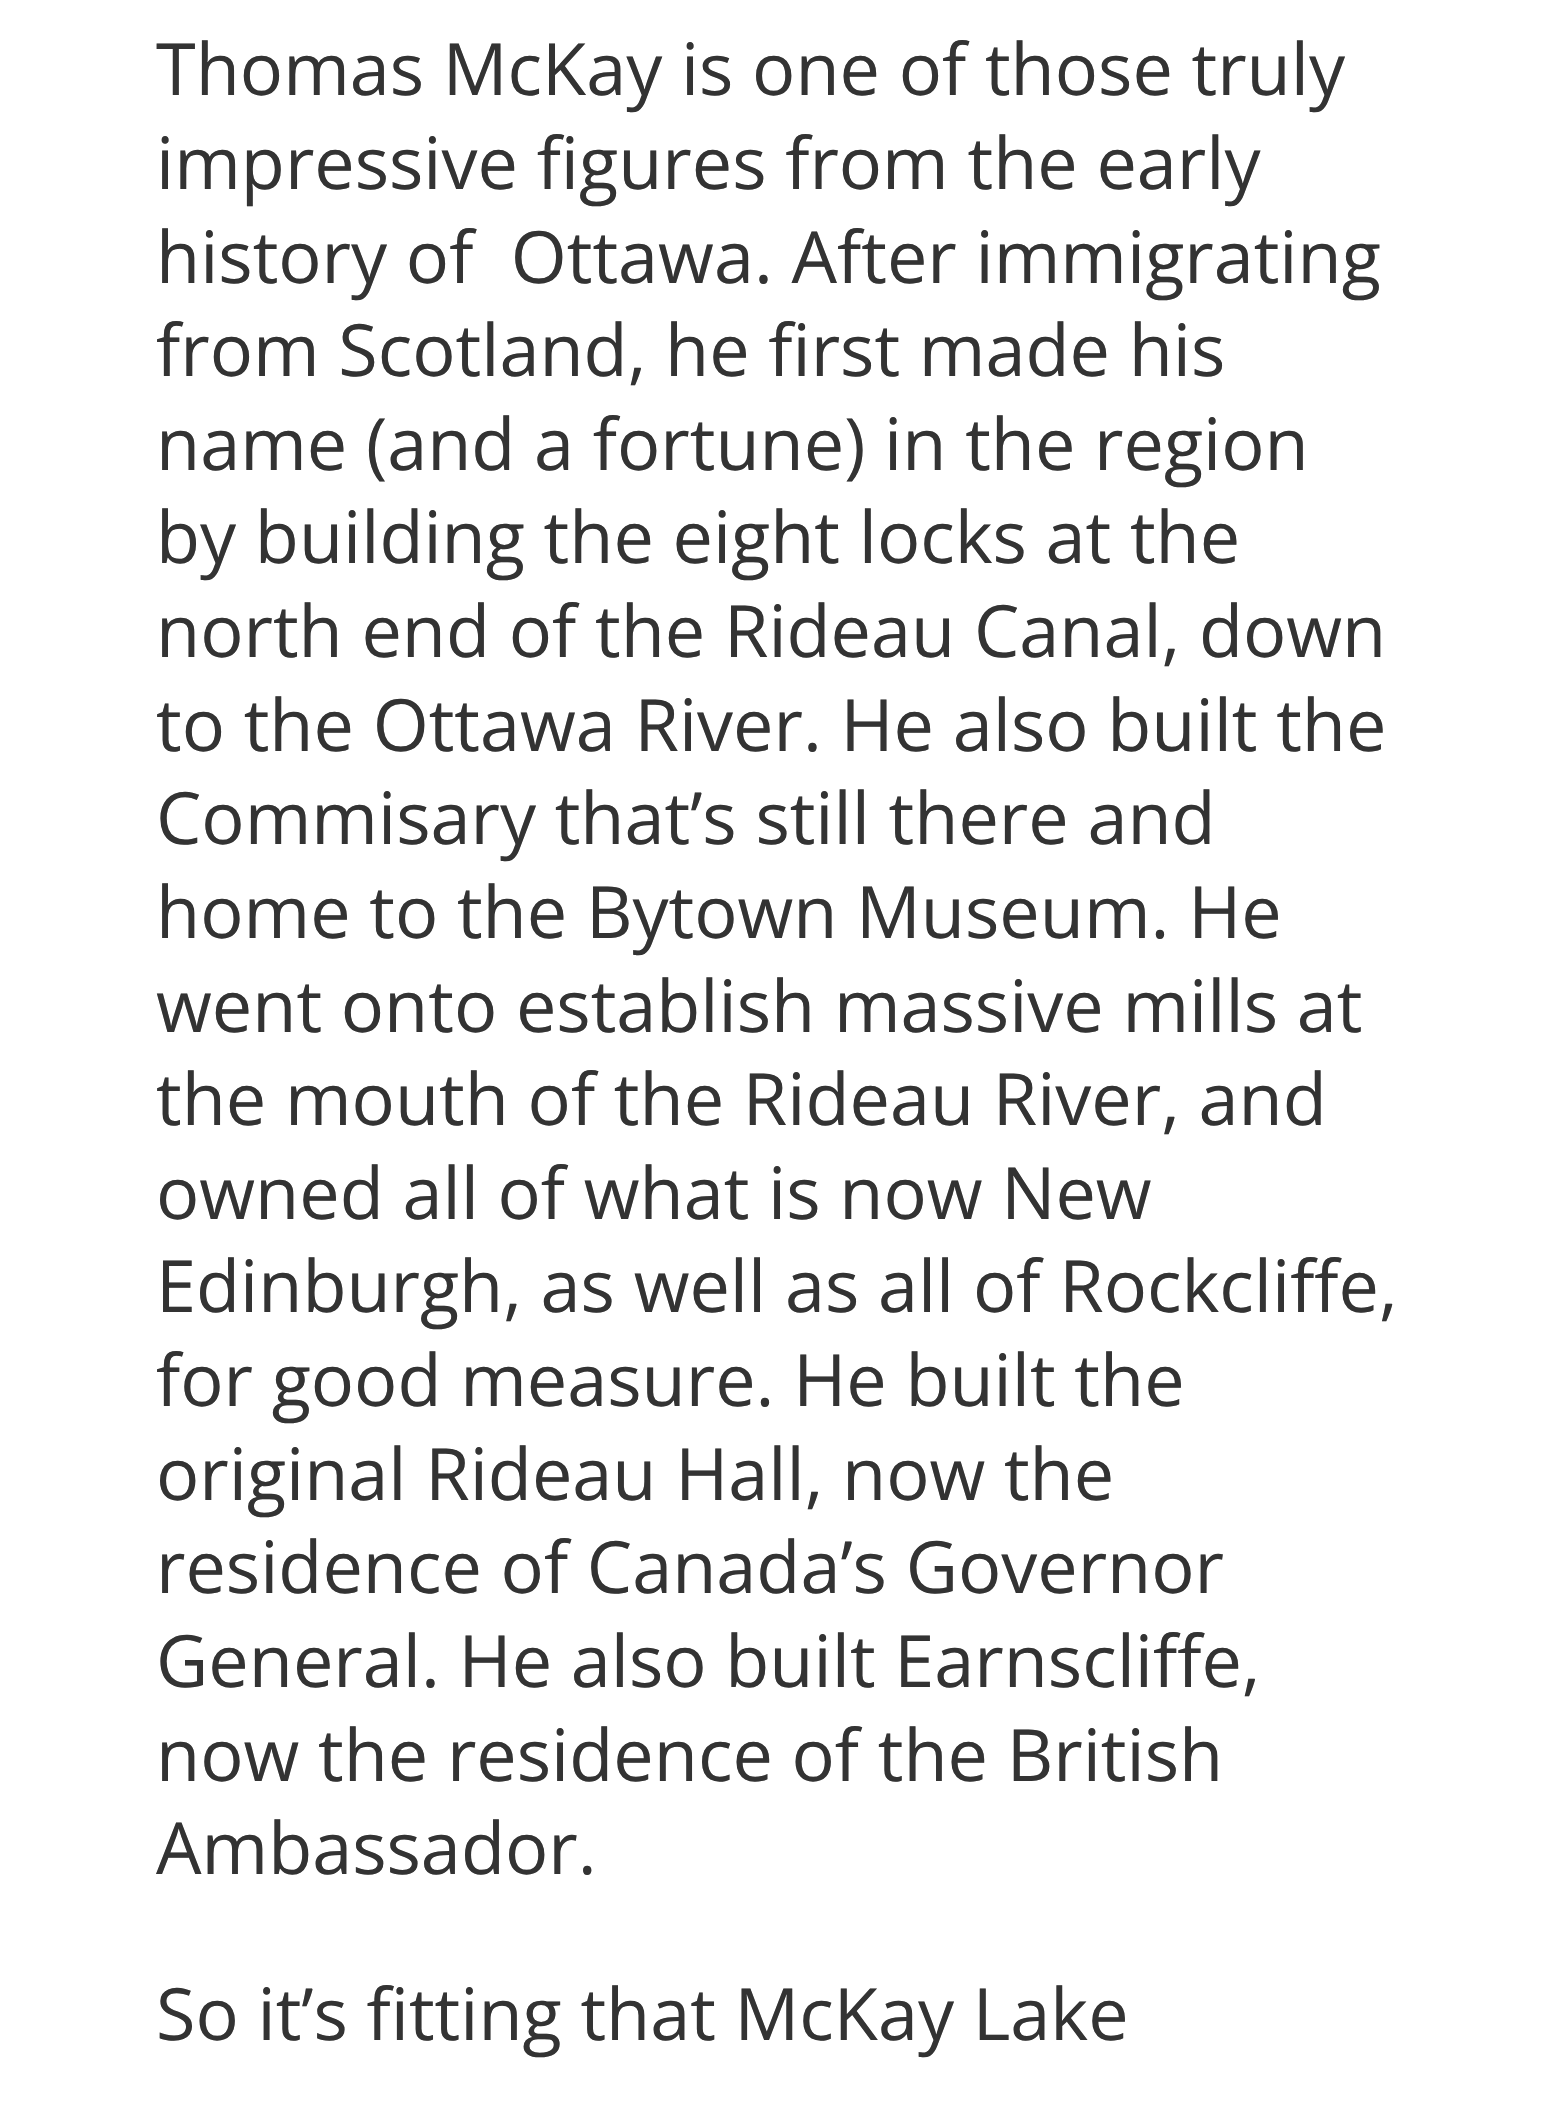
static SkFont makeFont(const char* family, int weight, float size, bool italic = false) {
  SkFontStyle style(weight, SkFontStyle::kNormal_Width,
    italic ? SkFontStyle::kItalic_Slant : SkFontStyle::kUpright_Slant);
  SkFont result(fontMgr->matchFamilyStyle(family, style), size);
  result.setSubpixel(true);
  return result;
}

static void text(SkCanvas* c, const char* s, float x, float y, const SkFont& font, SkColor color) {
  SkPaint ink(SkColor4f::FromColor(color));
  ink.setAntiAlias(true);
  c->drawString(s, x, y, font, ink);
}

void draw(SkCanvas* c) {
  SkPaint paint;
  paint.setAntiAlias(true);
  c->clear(0xffffffff);
  SkFont face1 = makeFont("Open Sans", 400, 72);
  text(c, "Thomas McKay is one of those truly", 156, 95, face1, 0xff333333);
  text(c, "impressive figures from the early", 156, 189, face1, 0xff333333);
  text(c, "history of  Ottawa. After immigrating", 156, 283, face1, 0xff333333);
  text(c, "from Scotland, he first made his", 156, 376, face1, 0xff333333);
  text(c, "name (and a fortune) in the region", 156, 470, face1, 0xff333333);
  text(c, "by building the eight locks at the", 156, 563, face1, 0xff333333);
  text(c, "north end of the Rideau Canal, down", 156, 657, face1, 0xff333333);
  text(c, "to the Ottawa River. He also built the", 156, 751, face1, 0xff333333);
  text(c, "Commisary that’s still there and", 156, 844, face1, 0xff333333);
  text(c, "home to the Bytown Museum. He", 156, 938, face1, 0xff333333);
  text(c, "went onto establish massive mills at", 156, 1032, face1, 0xff333333);
  text(c, "the mouth of the Rideau River, and", 156, 1125, face1, 0xff333333);
  text(c, "owned all of what is now New", 156, 1219, face1, 0xff333333);
  text(c, "Edinburgh, as well as all of Rockcliffe,", 156, 1312, face1, 0xff333333);
  text(c, "for good measure. He built the", 156, 1406, face1, 0xff333333);
  text(c, "original Rideau Hall, now the", 156, 1500, face1, 0xff333333);
  text(c, "residence of Canada’s Governor", 156, 1593, face1, 0xff333333);
  text(c, "General. He also built Earnscliffe,", 156, 1687, face1, 0xff333333);
  text(c, "now the residence of the British", 156, 1781, face1, 0xff333333);
  text(c, "Ambassador.", 156, 1874, face1, 0xff333333);
  text(c, "So it’s fitting that McKay Lake", 156, 2040, face1, 0xff333333);
}
